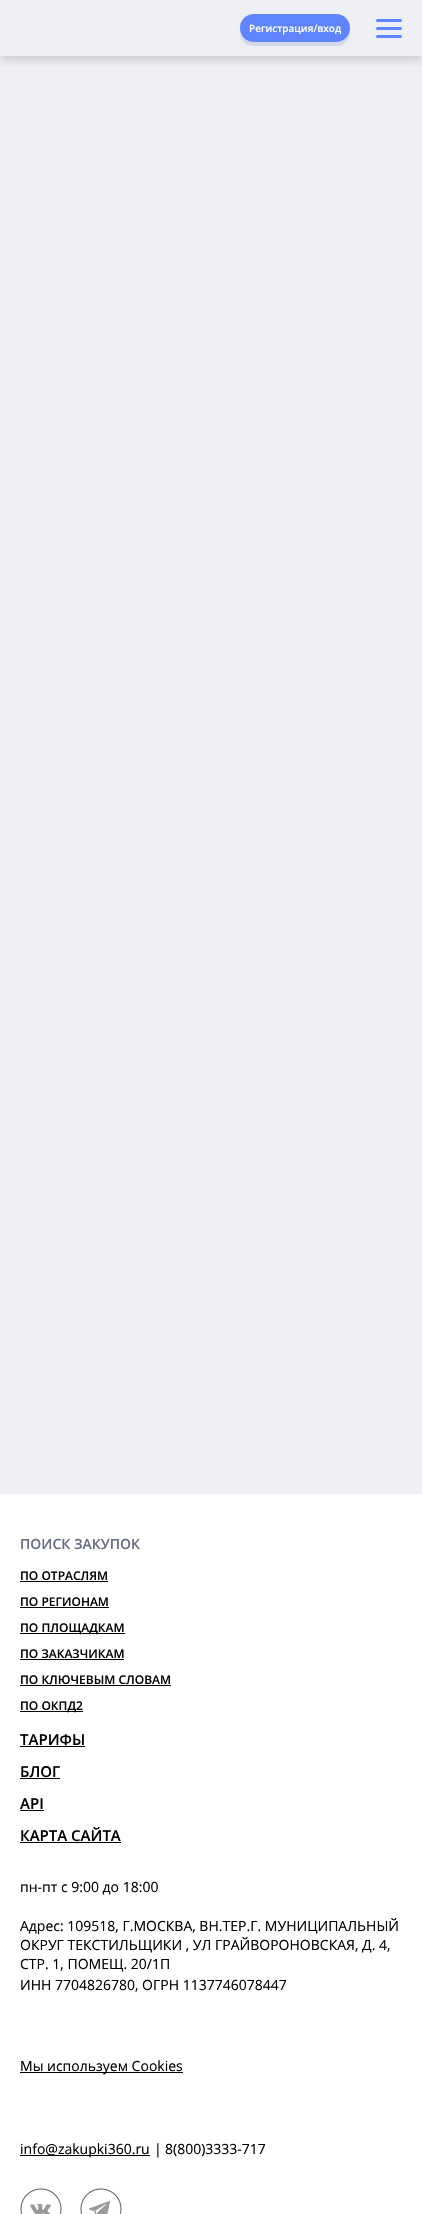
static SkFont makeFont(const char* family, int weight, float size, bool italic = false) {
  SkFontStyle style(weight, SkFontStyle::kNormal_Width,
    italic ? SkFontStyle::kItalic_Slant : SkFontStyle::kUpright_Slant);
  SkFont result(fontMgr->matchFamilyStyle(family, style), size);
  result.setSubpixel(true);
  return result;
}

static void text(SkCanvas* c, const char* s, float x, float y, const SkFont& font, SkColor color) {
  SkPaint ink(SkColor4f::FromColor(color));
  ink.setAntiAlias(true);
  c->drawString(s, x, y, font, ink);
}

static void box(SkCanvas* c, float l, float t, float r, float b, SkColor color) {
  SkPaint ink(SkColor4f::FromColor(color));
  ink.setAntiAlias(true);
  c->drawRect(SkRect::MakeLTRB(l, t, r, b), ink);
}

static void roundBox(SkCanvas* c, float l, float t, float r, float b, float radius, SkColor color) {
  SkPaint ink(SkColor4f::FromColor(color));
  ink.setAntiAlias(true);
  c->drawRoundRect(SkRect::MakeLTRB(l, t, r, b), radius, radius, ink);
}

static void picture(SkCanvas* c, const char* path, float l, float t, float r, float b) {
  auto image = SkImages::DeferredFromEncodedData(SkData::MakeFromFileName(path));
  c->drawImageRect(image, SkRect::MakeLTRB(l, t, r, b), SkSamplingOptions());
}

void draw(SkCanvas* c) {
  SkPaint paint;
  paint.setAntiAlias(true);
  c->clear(0xffedeff5);
  c->save();
  c->clipRect(SkRect::MakeLTRB(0, 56, 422, 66));
  paint.setColor(0x26000000);
  paint.setMaskFilter(SkMaskFilter::MakeBlur(kNormal_SkBlurStyle, 5));
  c->drawRect(SkRect::MakeLTRB(0, 4, 422, 60), paint);
  paint.setMaskFilter(nullptr);
  c->restore();
  paint.setColor(0xffd3d8e8);
  c->drawPath(SkPathBuilder().moveTo(240, 30).lineTo(240, 32).cubicTo(240, 40, 246, 46, 254, 46).lineTo(336, 46).cubicTo(344, 46, 350, 40, 350, 32).lineTo(350, 30).cubicTo(349, 37, 343, 42, 336, 42).lineTo(254, 42).cubicTo(247, 42, 241, 37, 240, 30).close().detach(), paint);
  roundBox(c, 240, 14, 350, 42, 14, 0xff5e84ff);
  SkFont face1 = makeFont("Open Sans", 600, 10);
  text(c, "Регистрация/вход", 249, 32, face1, 0xffffffff);
  roundBox(c, 376, 19, 402, 22, 1.5f, 0xff5e84ff);
  roundBox(c, 376, 27, 402, 30, 1.5f, 0xff5e84ff);
  roundBox(c, 376, 35, 402, 38, 1.5f, 0xff5e84ff);
  box(c, 0, 1494, 422, 2214, 0xffffffff);
  SkFont face2 = makeFont("Open Sans", 600, 14);
  text(c, "ПОИСК ЗАКУПОК", 20, 1549, face2, 0xff676c82);
  SkFont face3 = makeFont("Open Sans", 600, 12);
  text(c, "ПО ОТРАСЛЯМ", 20, 1580, face3, 0xff000000);
  box(c, 20, 1581, 108, 1582, 0xff000000);
  text(c, "ПО РЕГИОНАМ", 20, 1606, face3, 0xff000000);
  box(c, 20, 1607, 109, 1608, 0xff000000);
  box(c, 20, 1633, 125, 1634, 0xff000000);
  text(c, "ПО ПЛОЩАДКАМ", 20, 1632, face3, 0xff000000);
  text(c, "ПО ЗАКАЗЧИКАМ", 20, 1658, face3, 0xff000000);
  box(c, 20, 1659, 124, 1660, 0xff000000);
  text(c, "ПО КЛЮЧЕВЫМ СЛОВАМ", 20, 1684, face3, 0xff000000);
  box(c, 20, 1685, 171, 1686, 0xff000000);
  box(c, 20, 1711, 83, 1712, 0xff000000);
  text(c, "ПО ОКПД2", 20, 1710, face3, 0xff000000);
  SkFont face4 = makeFont("Open Sans", 600, 15);
  text(c, "ТАРИФЫ", 20, 1745, face4, 0xff000000);
  box(c, 20, 1746, 85, 1747, 0xff000000);
  text(c, "БЛОГ", 20, 1777, face4, 0xff000000);
  box(c, 20, 1778, 60, 1779, 0xff000000);
  text(c, "API", 20, 1809, face4, 0xff000000);
  box(c, 20, 1810, 44, 1811, 0xff000000);
  text(c, "КАРТА САЙТА", 20, 1841, face4, 0xff000000);
  box(c, 20, 1842, 121, 1843, 0xff000000);
  SkFont face5 = makeFont("Open Sans", 400, 14);
  text(c, "пн-пт с 9:00 до 18:00", 20, 1892, face5, 0xff000000);
  text(c, "Адрес: 109518, Г.МОСКВА, ВН.ТЕР.Г. МУНИЦИПАЛЬНЫЙ", 20, 1931, face5, 0xff000000);
  text(c, "ОКРУГ ТЕКСТИЛЬЩИКИ , УЛ ГРАЙВОРОНОВСКАЯ, Д. 4,", 20, 1950, face5, 0xff000000);
  text(c, "СТР. 1, ПОМЕЩ. 20/1П", 20, 1969, face5, 0xff000000);
  text(c, "ИНН 7704826780, ОГРН 1137746078447", 20, 1990, face5, 0xff000000);
  box(c, 20, 2072, 183, 2073, 0xff000000);
  text(c, "Мы используем Cookies", 20, 2071, face5, 0xff000000);
  box(c, 20, 2155, 150, 2156, 0xff000000);
  text(c, "info@zakupki360.ru", 20, 2154, face5, 0xff000000);
  text(c, "|", 154, 2154, face5, 0xff000000);
  text(c, "8(800)3333-717", 165, 2154, face5, 0xff000000);
  picture(c, "img_01.png", 20, 2188, 62, 2214);
  picture(c, "img_02.png", 80, 2188, 122, 2214);
}
